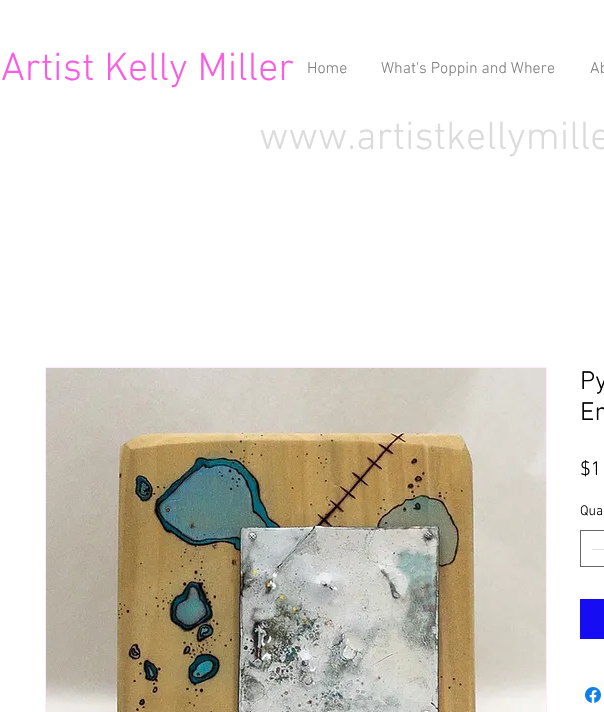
static SkFont makeFont(const char* family, int weight, float size, bool italic = false) {
  SkFontStyle style(weight, SkFontStyle::kNormal_Width,
    italic ? SkFontStyle::kItalic_Slant : SkFontStyle::kUpright_Slant);
  SkFont result(fontMgr->matchFamilyStyle(family, style), size);
  result.setSubpixel(true);
  return result;
}

static void text(SkCanvas* c, const char* s, float x, float y, const SkFont& font, SkColor color) {
  SkPaint ink(SkColor4f::FromColor(color));
  ink.setAntiAlias(true);
  c->drawString(s, x, y, font, ink);
}

static void box(SkCanvas* c, float l, float t, float r, float b, SkColor color) {
  SkPaint ink(SkColor4f::FromColor(color));
  ink.setAntiAlias(true);
  c->drawRect(SkRect::MakeLTRB(l, t, r, b), ink);
}

static void picture(SkCanvas* c, const char* path, float l, float t, float r, float b) {
  auto image = SkImages::DeferredFromEncodedData(SkData::MakeFromFileName(path));
  c->drawImageRect(image, SkRect::MakeLTRB(l, t, r, b), SkSamplingOptions());
}

void draw(SkCanvas* c) {
  SkPaint paint;
  paint.setAntiAlias(true);
  c->clear(0xffffffff);
  SkFont face1 = makeFont("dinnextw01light", 300, 40);
  text(c, "Artist Kelly Miller", 1, 80, face1, 0xfffa5ce2);
  SkFont face2 = makeFont("dinnextw01light", 300, 16);
  text(c, "Home", 307, 73, face2, 0xff808080);
  text(c, "What's Poppin and Where", 381, 73, face2, 0xff808080);
  text(c, "Ab", 590, 73, face2, 0xff808080);
  text(c, "www.artistkellymille", 259, 149, face1, 0xffdbdbdb);
  paint.setStyle(SkPaint::kStroke_Style);
  paint.setStrokeWidth(1);
  paint.setColor(0xffffebff);
  c->drawRect(SkRect::MakeLTRB(45.5f, 367.5f, 546.5f, 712.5f), paint);
  picture(c, "img_01.png", 46, 368, 546, 712);
  SkFont face3 = makeFont("dinnextw01light", 300, 26);
  text(c, "Py", 580, 389, face3, 0xff000000);
  text(c, "En", 580, 420, face3, 0xff000000);
  SkFont face4 = makeFont("dinnextw01light", 300, 20);
  text(c, "$1", 580, 475, face4, 0xff000000);
  SkFont face5 = makeFont("dinnextw01light", 300, 14);
  text(c, "Qua", 580, 515, face5, 0xff000000);
  paint.setColor(0xff666666);
  c->drawRect(SkRect::MakeLTRB(580.5f, 530.5f, 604.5f, 566.5f), paint);
  box(c, 592, 549, 604, 550, 0xffe3e3e3);
  box(c, 580, 599, 604, 639, 0xff170df2);
  picture(c, "img_02.png", 585, 687, 601, 703);
}
